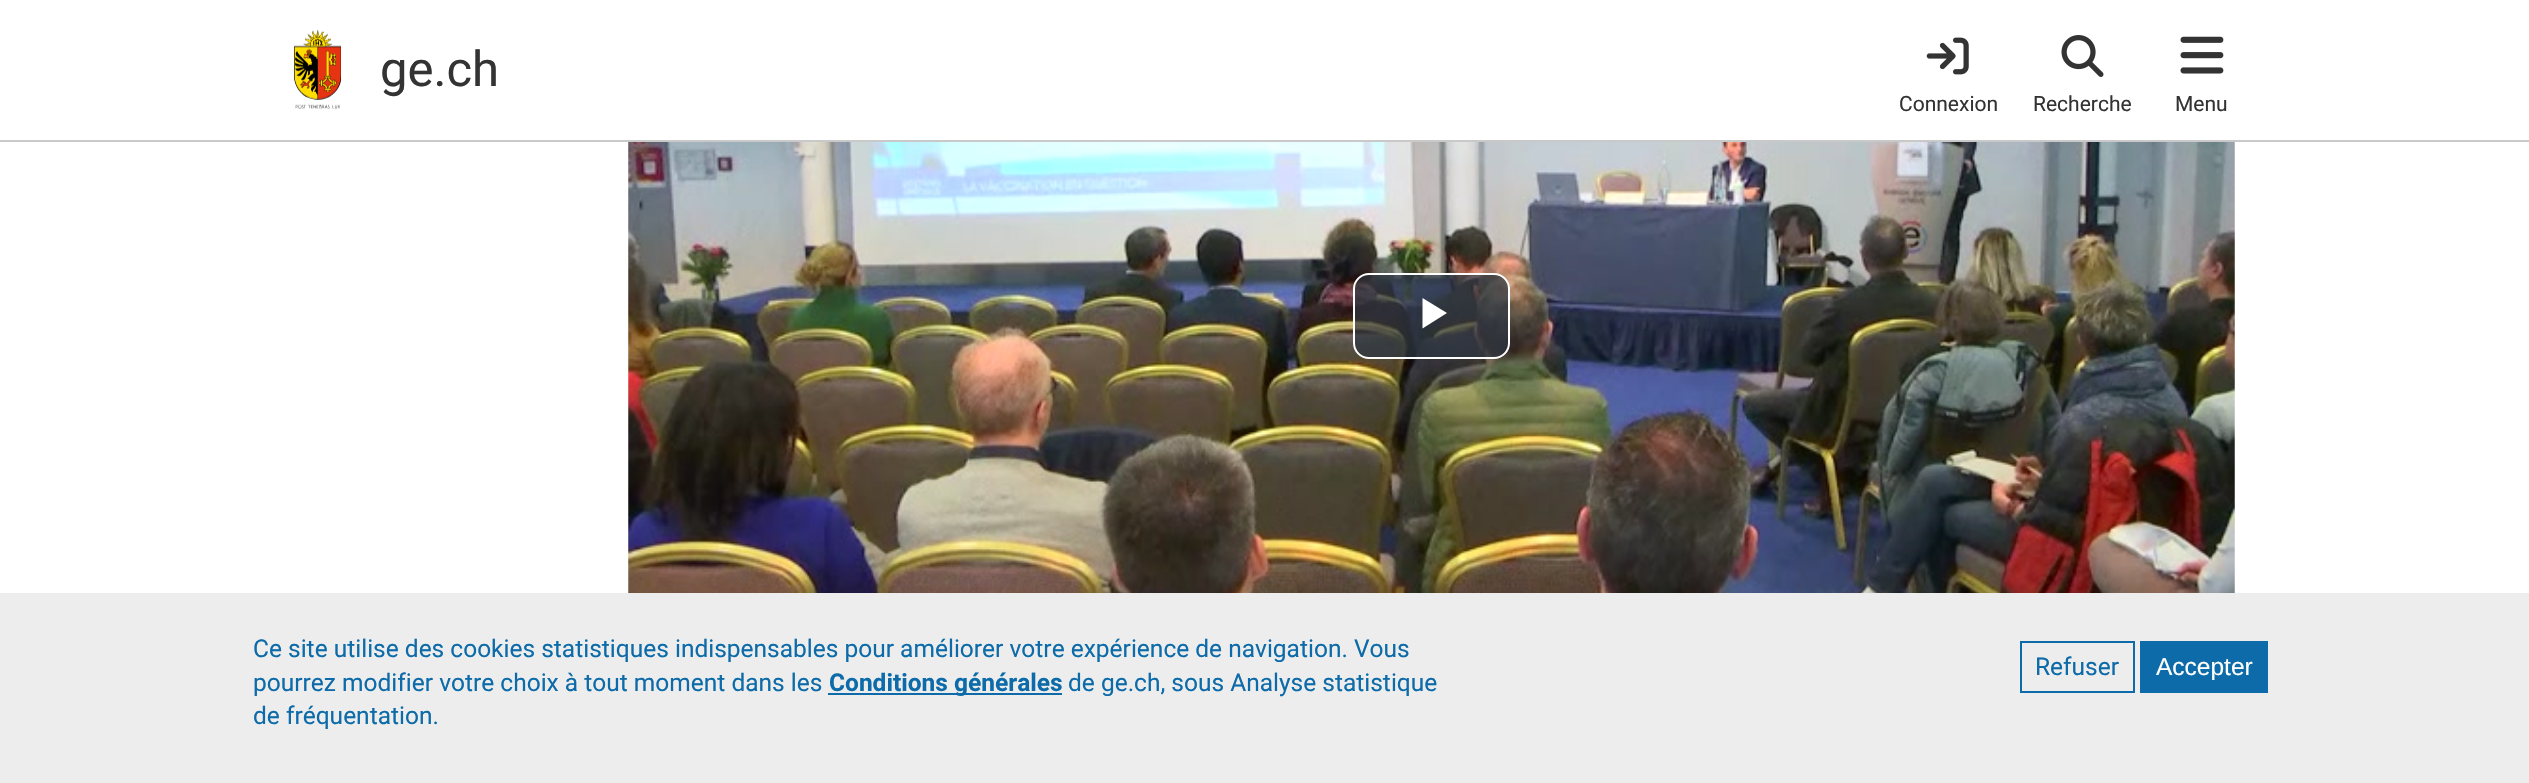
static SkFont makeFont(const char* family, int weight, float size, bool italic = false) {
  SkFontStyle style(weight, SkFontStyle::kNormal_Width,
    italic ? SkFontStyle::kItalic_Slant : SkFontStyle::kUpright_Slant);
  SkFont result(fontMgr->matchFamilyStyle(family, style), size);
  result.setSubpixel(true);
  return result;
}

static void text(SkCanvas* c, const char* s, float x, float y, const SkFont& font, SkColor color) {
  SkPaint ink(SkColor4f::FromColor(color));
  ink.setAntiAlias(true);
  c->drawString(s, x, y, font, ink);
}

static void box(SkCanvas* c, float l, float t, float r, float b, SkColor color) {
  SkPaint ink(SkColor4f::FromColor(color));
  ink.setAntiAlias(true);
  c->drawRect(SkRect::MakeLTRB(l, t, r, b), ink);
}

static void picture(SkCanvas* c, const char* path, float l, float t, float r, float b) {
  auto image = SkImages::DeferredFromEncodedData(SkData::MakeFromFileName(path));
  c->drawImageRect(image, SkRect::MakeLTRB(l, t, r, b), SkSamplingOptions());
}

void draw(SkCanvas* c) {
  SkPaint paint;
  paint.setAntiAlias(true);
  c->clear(0xffffffff);
  box(c, 0, 140, 2529, 142, 0xffc9c9c9);
  picture(c, "img_01.png", 294, 29, 341, 109);
  SkFont face1 = makeFont("Roboto", 400, 49);
  text(c, "ge.ch", 380, 86, face1, 0xff333333);
  picture(c, "img_02.png", 1926, 37, 1969, 75);
  SkFont face2 = makeFont("Roboto", 400, 21);
  text(c, "Connexion", 1899, 111, face2, 0xff333333);
  picture(c, "img_03.png", 2061, 35, 2104, 77);
  text(c, "Recherche", 2033, 111, face2, 0xff333333);
  picture(c, "img_04.png", 2180, 36, 2224, 74);
  text(c, "Menu", 2175, 111, face2, 0xff333333);
  picture(c, "img_05.png", 628, 142, 2235, 593);
  paint.setColor(0xb32b333f);
  c->drawRoundRect(SkRect::MakeLTRB(1354, 274, 1509, 358), 15, 15, paint);
  paint.setStyle(SkPaint::kStroke_Style);
  paint.setStrokeWidth(2);
  paint.setColor(0xffffffff);
  c->drawRoundRect(SkRect::MakeLTRB(1354, 274, 1509, 358), 15, 15, paint);
  paint.setStyle(SkPaint::kFill_Style);
  c->drawPath(SkPathBuilder().moveTo(1422.5f, 298).lineTo(1422.5f, 328.5f).lineTo(1447, 313).close().detach(), paint);
  box(c, 0, 593, 2529, 783, 0xffededed);
  SkFont face3 = makeFont("Roboto", 400, 24.5f);
  text(c, "Ce site utilise des cookies statistiques indispensables pour améliorer votre expérience de navigation. Vous", 253, 657, face3, 0xff0c6ba8);
  text(c, "pourrez modifier votre choix à tout moment dans les", 253, 691, face3, 0xff0c6ba8);
  box(c, 828, 693, 1062, 695, 0xff0c6ba8);
  SkFont face4 = makeFont("Roboto", 700, 24.5f);
  text(c, "Conditions générales", 829, 691, face4, 0xff0c6ba8);
  text(c, "de ge.ch, sous Analyse statistique", 1068, 691, face3, 0xff0c6ba8);
  text(c, "de fréquentation.", 253, 724, face3, 0xff0c6ba8);
  paint.setStyle(SkPaint::kStroke_Style);
  paint.setColor(0xff0c6ba8);
  c->drawRect(SkRect::MakeLTRB(2021, 642, 2134, 692), paint);
  text(c, "Refuser", 2035, 675, face3, 0xff0c6ba8);
  box(c, 2140, 641, 2268, 693, 0xff0c6ba8);
  SkFont face5 = makeFont("Liberation Sans", 400, 24.5f);
  text(c, "Accepter", 2156, 675, face5, 0xffffffff);
}
